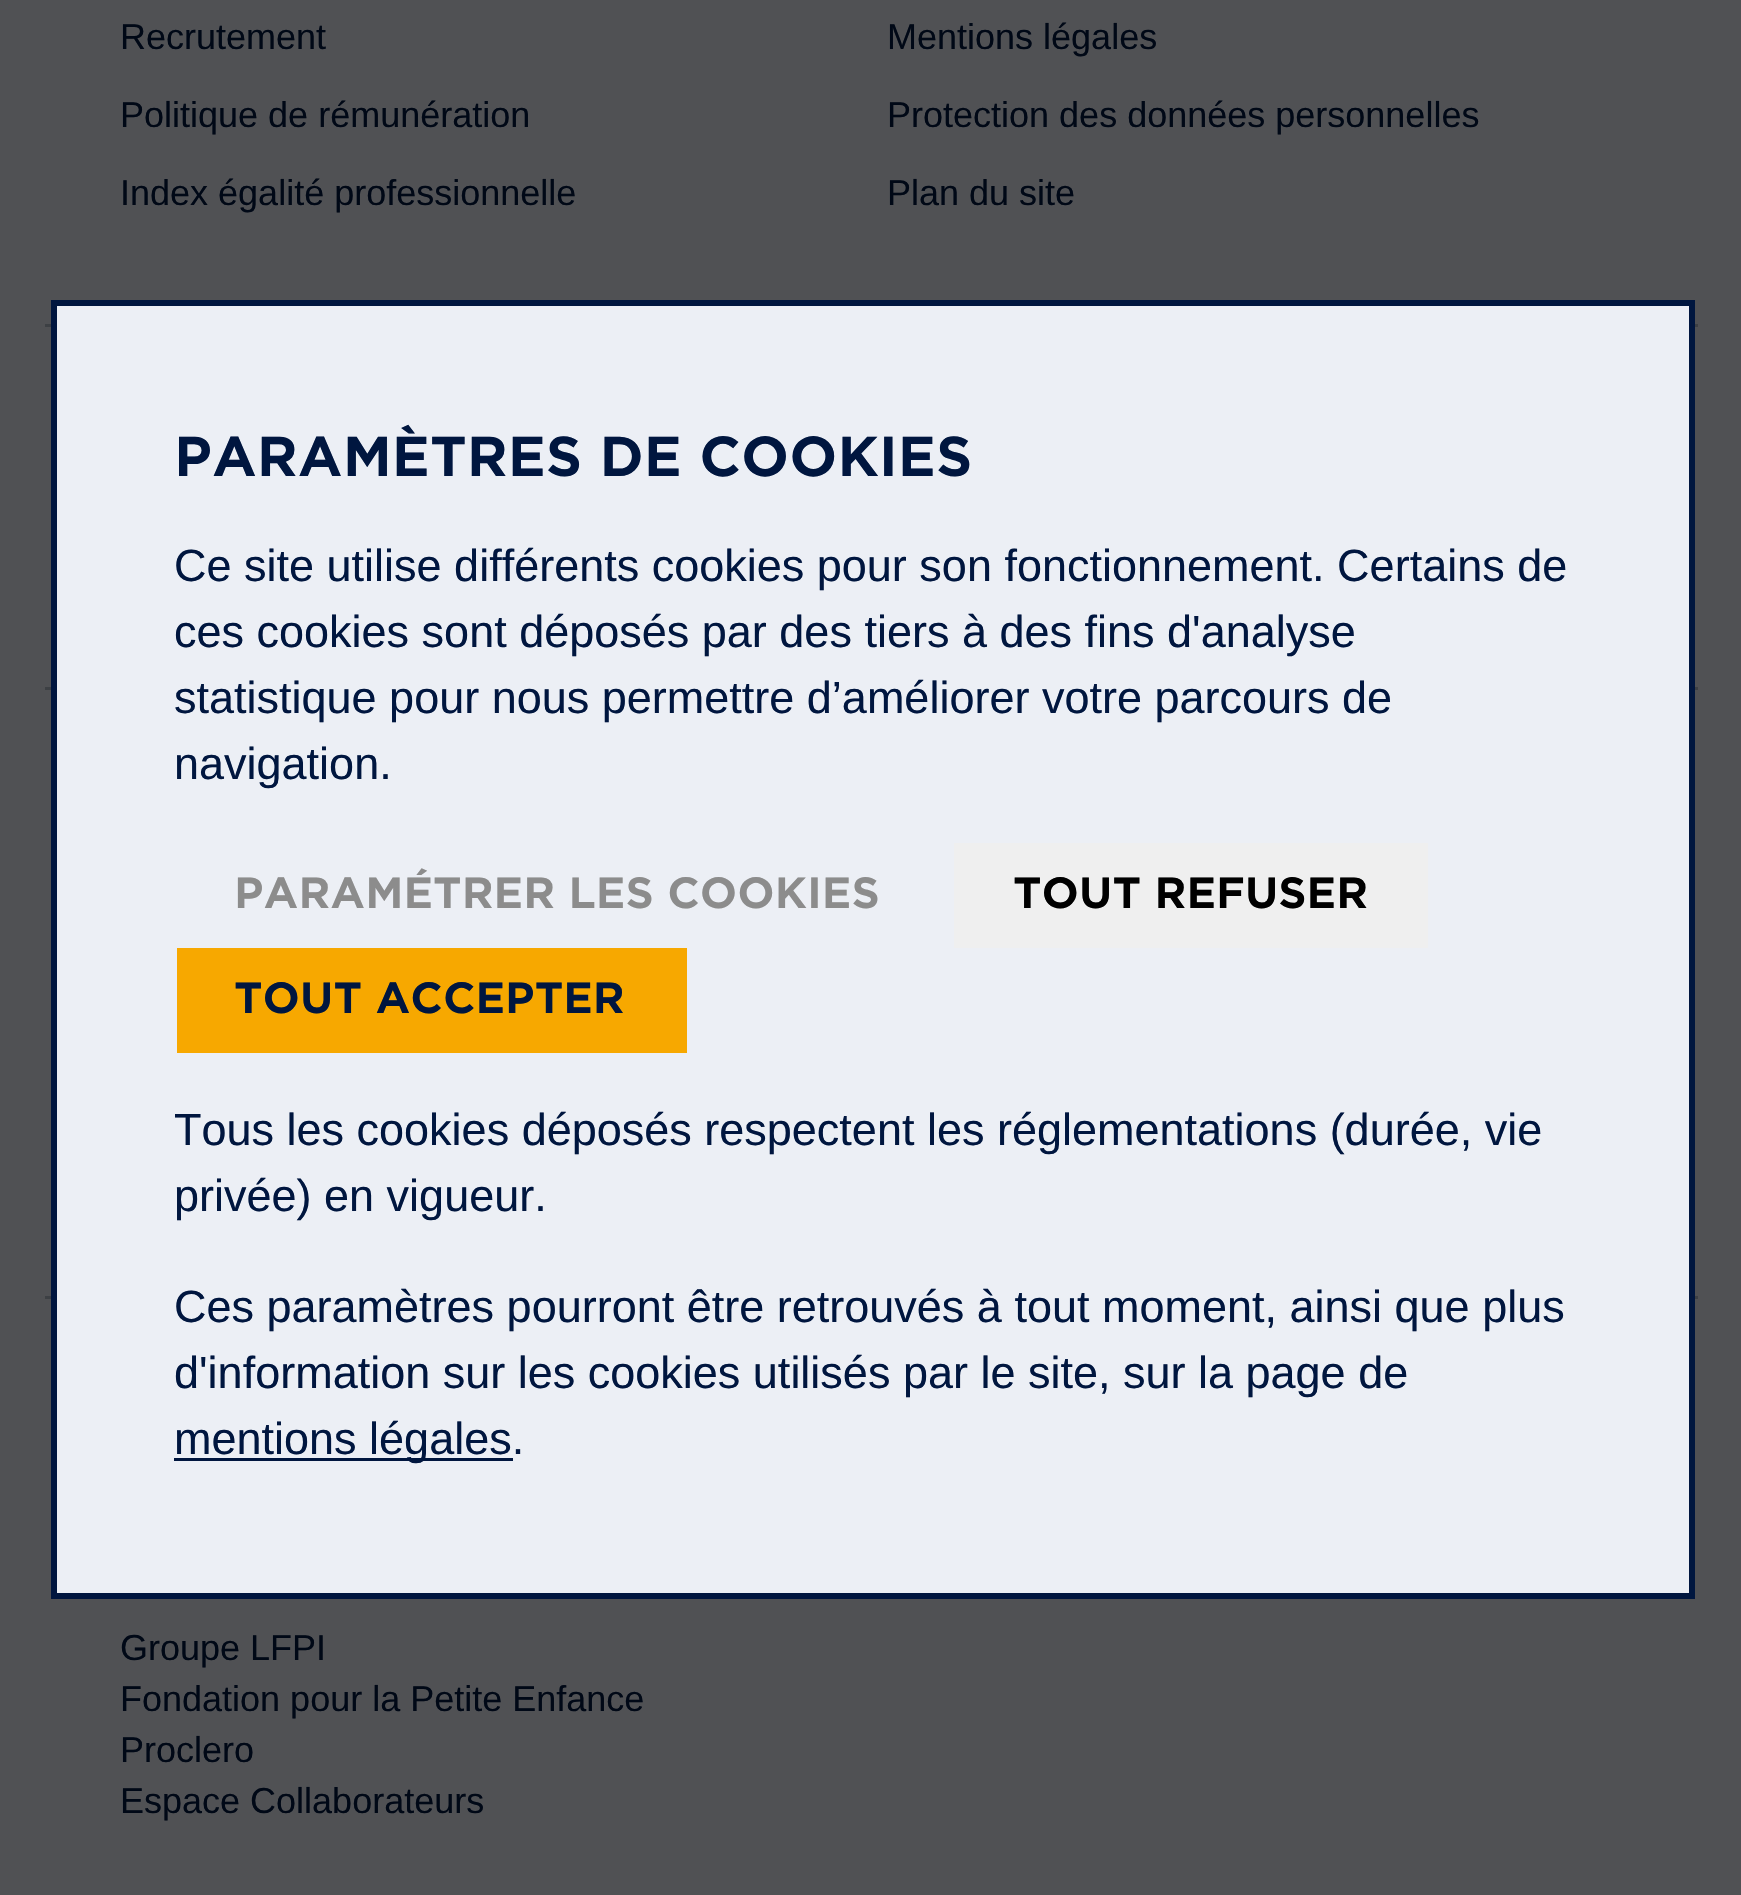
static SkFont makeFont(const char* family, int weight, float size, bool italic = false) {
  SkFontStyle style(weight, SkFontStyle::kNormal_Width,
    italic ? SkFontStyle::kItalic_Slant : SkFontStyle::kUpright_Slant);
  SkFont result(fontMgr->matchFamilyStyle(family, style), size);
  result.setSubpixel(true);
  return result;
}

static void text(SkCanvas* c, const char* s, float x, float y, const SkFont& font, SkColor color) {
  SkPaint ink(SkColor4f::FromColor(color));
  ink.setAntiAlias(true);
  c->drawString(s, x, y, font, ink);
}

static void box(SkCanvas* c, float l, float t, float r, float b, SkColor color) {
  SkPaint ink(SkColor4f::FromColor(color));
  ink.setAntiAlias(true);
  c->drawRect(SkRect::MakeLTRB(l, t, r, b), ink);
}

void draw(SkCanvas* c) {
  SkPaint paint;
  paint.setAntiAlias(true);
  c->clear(0xff505154);
  SkFont face1 = makeFont("Liberation Sans", 400, 36);
  text(c, "Recrutement", 120, 49, face1, 0xff000816);
  text(c, "Mentions légales", 887, 49, face1, 0xff000816);
  text(c, "Politique de rémunération", 120, 127, face1, 0xff000816);
  text(c, "Protection des données personnelles", 887, 127, face1, 0xff000816);
  text(c, "Index égalité professionnelle", 120, 205, face1, 0xff000816);
  text(c, "Plan du site", 887, 205, face1, 0xff000816);
  box(c, 45, 324, 1698, 327, 0xff3d4044);
  box(c, 45, 687, 1698, 690, 0xff3d4044);
  box(c, 45, 1296, 1698, 1299, 0xff3d4044);
  text(c, "Groupe LFPI", 120, 1660, face1, 0xff000816);
  text(c, "Fondation pour la Petite Enfance", 120, 1711, face1, 0xff000816);
  text(c, "Proclero", 120, 1762, face1, 0xff000816);
  text(c, "Espace Collaborateurs", 120, 1813, face1, 0xff000816);
  paint.setColor(0xffeceff5);
  c->drawRect(SkRect::MakeLTRB(54, 303, 1692, 1596), paint);
  paint.setStyle(SkPaint::kStroke_Style);
  paint.setStrokeWidth(6);
  paint.setColor(0xff00163f);
  c->drawRect(SkRect::MakeLTRB(54, 303, 1692, 1596), paint);
  SkFont face2 = makeFont("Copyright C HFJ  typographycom", 400, 54);
  text(c, "PARAMÈTRES DE COOKIES", 174, 476, face2, 0xff00163f);
  SkFont face3 = makeFont("Liberation Sans", 400, 45);
  text(c, "Ce site utilise différents cookies pour son fonctionnement. Certains de", 174, 581, face3, 0xff00163f);
  text(c, "ces cookies sont déposés par des tiers à des fins d'analyse", 174, 647, face3, 0xff00163f);
  text(c, "statistique pour nous permettre d’améliorer votre parcours de", 174, 713, face3, 0xff00163f);
  text(c, "navigation.", 174, 779, face3, 0xff00163f);
  SkFont face4 = makeFont("Copyright C HFJ  typographycom", 400, 42);
  text(c, "PARAMÉTRER LES COOKIES", 234, 908, face4, 0xff8c8c8c);
  box(c, 954, 843, 1428, 948, 0xffefefef);
  text(c, "TOUT REFUSER", 1013, 908, face4, 0xff000000);
  box(c, 177, 948, 687, 1053, 0xfff7a800);
  text(c, "TOUT ACCEPTER", 234, 1013, face4, 0xff00163f);
  text(c, "Tous les cookies déposés respectent les réglementations (durée, vie", 174, 1145, face3, 0xff00163f);
  text(c, "privée) en vigueur.", 174, 1211, face3, 0xff00163f);
  text(c, "Ces paramètres pourront être retrouvés à tout moment, ainsi que plus", 174, 1322, face3, 0xff00163f);
  text(c, "d'information sur les cookies utilisés par le site, sur la page de", 174, 1388, face3, 0xff00163f);
  box(c, 174, 1458, 513, 1461, 0xff00163f);
  text(c, "mentions légales.", 174, 1454, face3, 0xff00163f);
}
